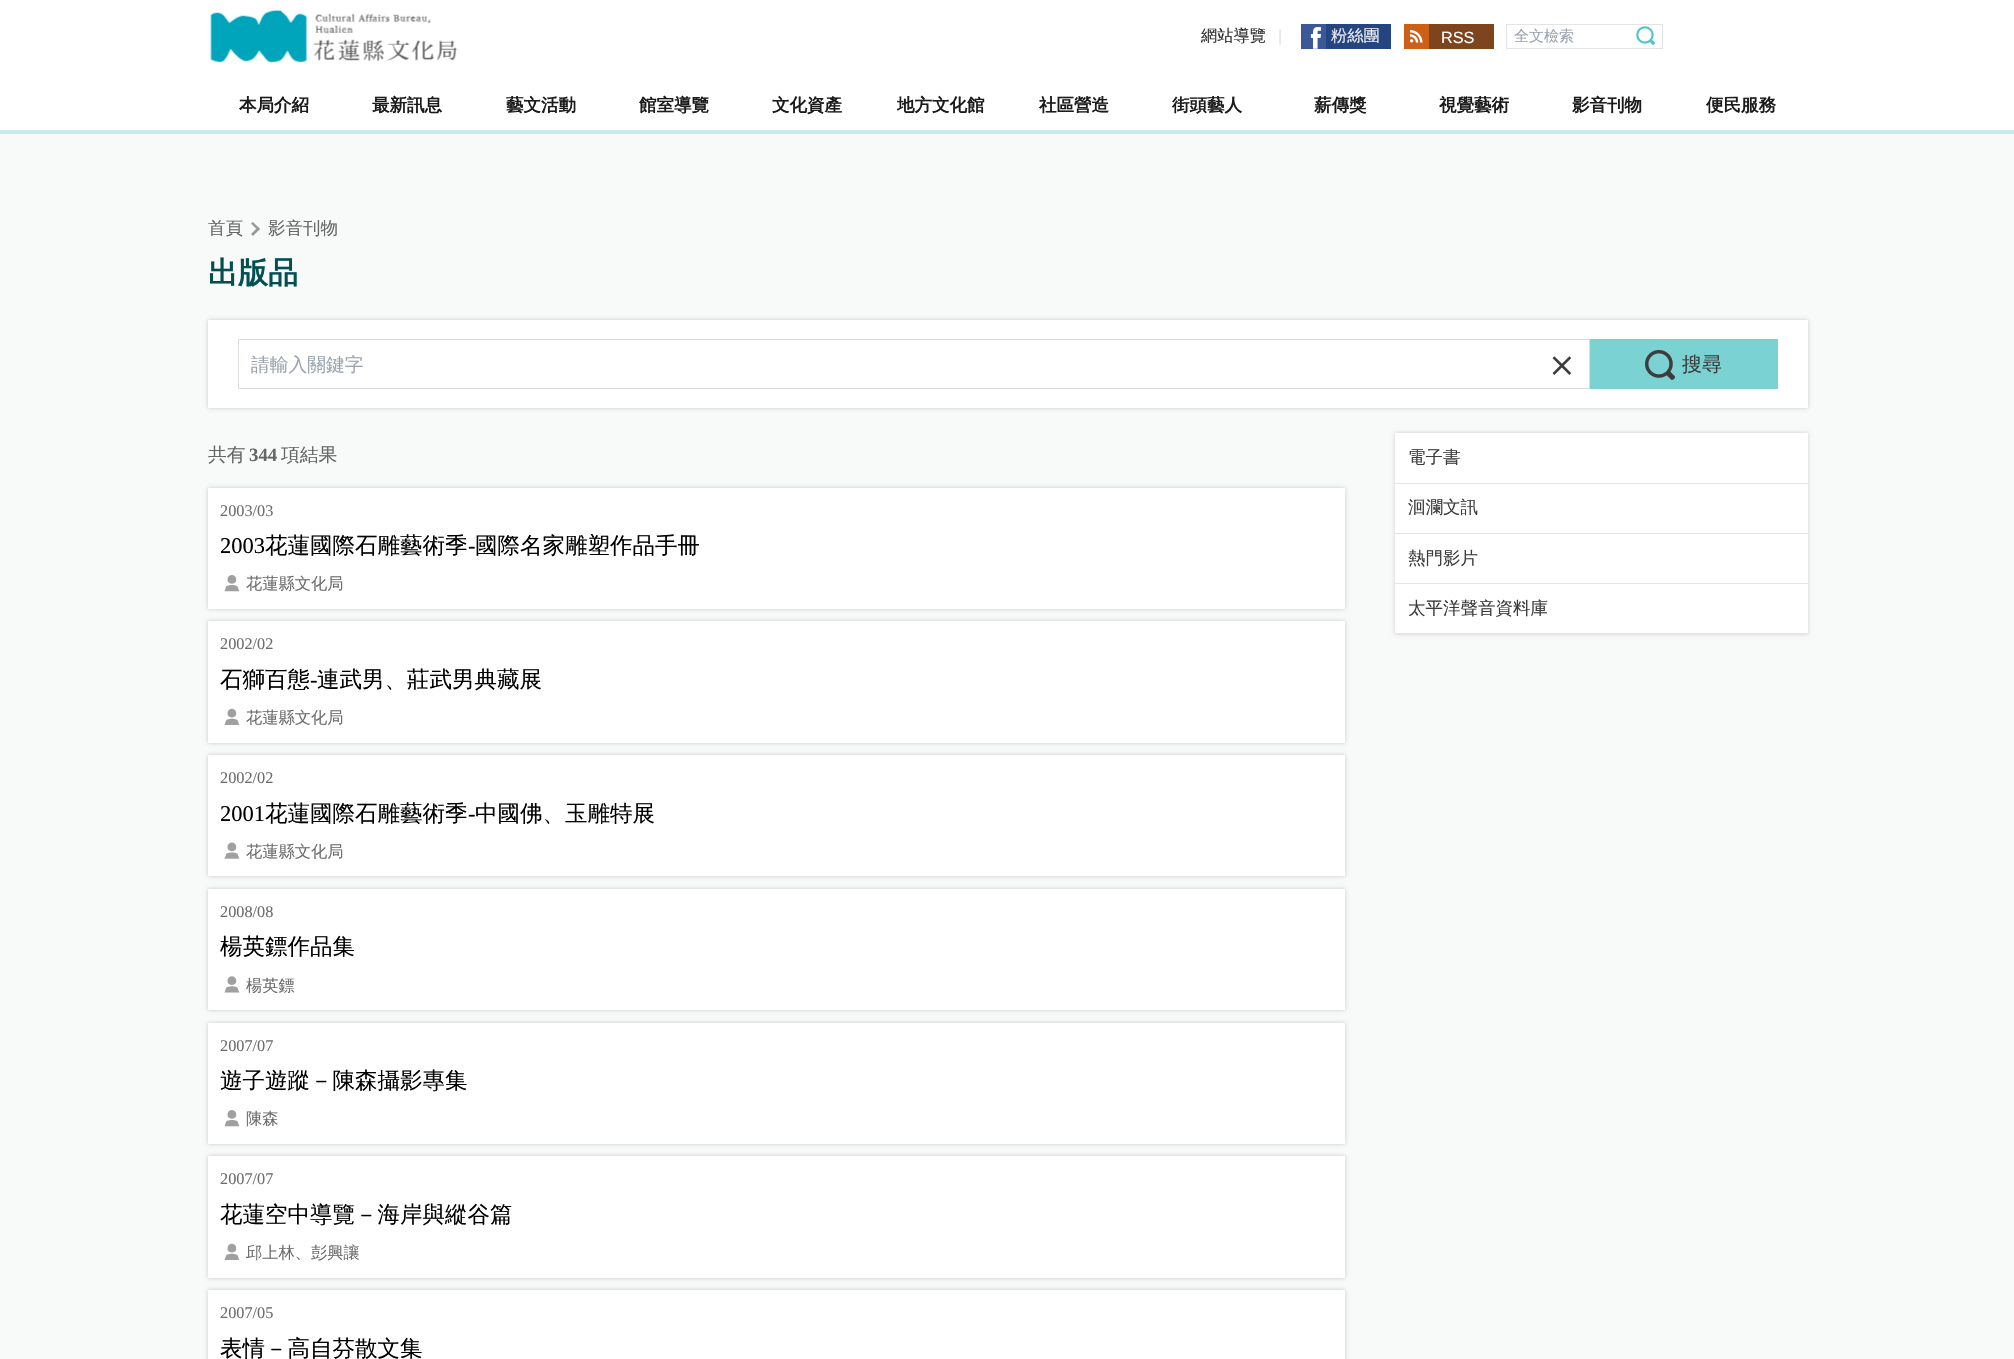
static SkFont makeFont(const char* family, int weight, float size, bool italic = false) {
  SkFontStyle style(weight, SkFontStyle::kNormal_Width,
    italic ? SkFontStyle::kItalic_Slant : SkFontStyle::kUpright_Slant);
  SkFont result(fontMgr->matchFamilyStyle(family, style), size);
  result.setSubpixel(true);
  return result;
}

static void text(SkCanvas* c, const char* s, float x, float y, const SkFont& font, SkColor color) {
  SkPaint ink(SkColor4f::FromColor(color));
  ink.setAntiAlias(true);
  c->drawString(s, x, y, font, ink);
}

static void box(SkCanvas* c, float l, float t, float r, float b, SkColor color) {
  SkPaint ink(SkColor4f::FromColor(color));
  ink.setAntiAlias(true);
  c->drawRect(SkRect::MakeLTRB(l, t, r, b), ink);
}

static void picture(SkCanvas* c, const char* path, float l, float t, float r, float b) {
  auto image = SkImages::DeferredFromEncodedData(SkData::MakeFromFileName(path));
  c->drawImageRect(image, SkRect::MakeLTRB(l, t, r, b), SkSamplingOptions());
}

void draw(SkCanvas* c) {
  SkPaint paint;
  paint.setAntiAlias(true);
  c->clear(0xfff8faf9);
  box(c, 0, 0, 2014, 130, 0xffffffff);
  box(c, 0, 130, 2014, 134, 0xffc8eaed);
  picture(c, "img_01.png", 210, 9, 457, 63);
  SkFont face1 = makeFont("WenQuanYi Zen Hei", 500, 16.25f);
  text(c, "網站導覽", 1201, 41, face1, 0xff2d2d2d);
  SkFont face2 = makeFont("Liberation Sans", 400, 16.25f);
  text(c, "|", 1278, 41, face2, 0xffe4e4e4);
  box(c, 1326, 24, 1391, 49, 0xff254580);
  box(c, 1301, 24, 1326, 49, 0xff3b5998);
  picture(c, "img_02.png", 1310, 27, 1321, 49);
  text(c, "粉絲團", 1331, 41, face1, 0xffefecef);
  box(c, 1429, 24, 1494, 49, 0xff7d441e);
  box(c, 1404, 24, 1429, 49, 0xffcc6017);
  picture(c, "img_03.png", 1410, 30, 1423, 43);
  text(c, "RSS", 1441, 43, face2, 0xffffffff);
  paint.setStyle(SkPaint::kStroke_Style);
  paint.setStrokeWidth(1);
  paint.setColor(0xffe4e4e4);
  c->drawRect(SkRect::MakeLTRB(1506.5f, 24.5f, 1662.5f, 48.5f), paint);
  SkFont face3 = makeFont("WenQuanYi Zen Hei", 500, 15);
  text(c, "全文檢索", 1514, 41, face3, 0xff9ca3af);
  picture(c, "img_04.png", 1636, 26, 1655, 45);
  SkFont face4 = makeFont("WenQuanYi Zen Hei", 700, 17.5f);
  text(c, "本局介紹", 239, 111, face4, 0xff1b1b1b);
  text(c, "最新訊息", 372, 111, face4, 0xff1b1b1b);
  text(c, "藝文活動", 506, 111, face4, 0xff1b1b1b);
  text(c, "館室導覽", 639, 111, face4, 0xff1b1b1b);
  text(c, "文化資產", 772, 111, face4, 0xff1b1b1b);
  text(c, "地方文化館", 897, 111, face4, 0xff1b1b1b);
  text(c, "社區營造", 1039, 111, face4, 0xff1b1b1b);
  text(c, "街頭藝人", 1172, 111, face4, 0xff1b1b1b);
  text(c, "薪傳獎", 1314, 111, face4, 0xff1b1b1b);
  text(c, "視覺藝術", 1439, 111, face4, 0xff1b1b1b);
  text(c, "影音刊物", 1572, 111, face4, 0xff1b1b1b);
  text(c, "便民服務", 1706, 111, face4, 0xff1b1b1b);
  SkFont face5 = makeFont("WenQuanYi Zen Hei", 500, 17.5f);
  text(c, "首頁", 208, 234, face5, 0xff666666);
  paint.setStyle(SkPaint::kFill_Style);
  paint.setColor(0xff999999);
  c->drawPath(SkPathBuilder().moveTo(251, 223.5f).lineTo(253, 222).lineTo(260, 229).lineTo(258, 230.5f).close().detach(), paint);
  c->drawPath(SkPathBuilder().moveTo(251, 234).lineTo(258, 227).lineTo(260, 229).lineTo(253, 236).close().detach(), paint);
  text(c, "影音刊物", 268, 234, face5, 0xff666666);
  SkFont face6 = makeFont("WenQuanYi Zen Hei", 700, 30);
  text(c, "出版品", 208, 283, face6, 0xff045050);
  paint.setColor(0x33000000);
  paint.setMaskFilter(SkMaskFilter::MakeBlur(kNormal_SkBlurStyle, 2));
  c->drawRect(SkRect::MakeLTRB(208, 320, 1808, 408), paint);
  paint.setMaskFilter(nullptr);
  box(c, 208, 320, 1808, 408, 0xffffffff);
  paint.setStyle(SkPaint::kStroke_Style);
  paint.setColor(0xffdcdcdc);
  c->drawRect(SkRect::MakeLTRB(238.5f, 339.5f, 1589.5f, 388.5f), paint);
  SkFont face7 = makeFont("WenQuanYi Zen Hei", 500, 18.75f);
  text(c, "請輸入關鍵字", 251, 371, face7, 0xff9ca3af);
  picture(c, "img_05.png", 1552, 356, 1572, 375);
  box(c, 1590, 339, 1778, 389, 0xff7ad2d3);
  picture(c, "img_06.png", 1645, 350, 1675, 380);
  SkFont face8 = makeFont("WenQuanYi Zen Hei", 500, 20);
  text(c, "搜尋", 1682, 371, face8, 0xff3c3c3c);
  text(c, "共有", 208, 461, face7, 0xff666666);
  SkFont face9 = makeFont("Liberation Serif", 700, 18.75f);
  text(c, "344", 249, 461, face9, 0xff666666);
  text(c, "項結果", 281, 461, face7, 0xff666666);
  paint.setStyle(SkPaint::kFill_Style);
  paint.setColor(0x33000000);
  paint.setMaskFilter(SkMaskFilter::MakeBlur(kNormal_SkBlurStyle, 2));
  c->drawRect(SkRect::MakeLTRB(208, 488, 1345, 609), paint);
  paint.setMaskFilter(nullptr);
  box(c, 208, 488, 1345, 609, 0xffffffff);
  SkFont face10 = makeFont("Liberation Serif", 400, 16.25f);
  text(c, "2003/03", 220, 516, face10, 0xff6d6d6d);
  SkFont face11 = makeFont("Liberation Serif", 400, 22.5f);
  text(c, "2003", 220, 553, face11, 0xff000000);
  SkFont face12 = makeFont("WenQuanYi Zen Hei", 500, 22.5f);
  text(c, "花蓮國際石雕藝術季", 265, 553, face12, 0xff000000);
  text(c, "-", 468, 553, face11, 0xff000000);
  text(c, "國際名家雕塑作品手冊", 475, 553, face12, 0xff000000);
  picture(c, "img_07.png", 224, 575, 240, 592);
  text(c, "花蓮縣文化局", 246, 589, face1, 0xff6d6d6d);
  paint.setMaskFilter(SkMaskFilter::MakeBlur(kNormal_SkBlurStyle, 2));
  c->drawRect(SkRect::MakeLTRB(208, 621, 1345, 743), paint);
  paint.setMaskFilter(nullptr);
  box(c, 208, 621, 1345, 743, 0xffffffff);
  text(c, "2002/02", 220, 649, face10, 0xff6d6d6d);
  text(c, "石獅百態", 220, 687, face12, 0xff000000);
  text(c, "-", 310, 687, face11, 0xff000000);
  text(c, "連武男、莊武男典藏展", 317, 687, face12, 0xff000000);
  picture(c, "img_08.png", 224, 708, 240, 725);
  text(c, "花蓮縣文化局", 246, 723, face1, 0xff6d6d6d);
  paint.setMaskFilter(SkMaskFilter::MakeBlur(kNormal_SkBlurStyle, 2));
  c->drawRect(SkRect::MakeLTRB(208, 755, 1345, 876), paint);
  paint.setMaskFilter(nullptr);
  box(c, 208, 755, 1345, 876, 0xffffffff);
  text(c, "2002/02", 220, 783, face10, 0xff6d6d6d);
  text(c, "2001", 220, 821, face11, 0xff000000);
  text(c, "花蓮國際石雕藝術季", 265, 821, face12, 0xff000000);
  text(c, "-", 468, 821, face11, 0xff000000);
  text(c, "中國佛、玉雕特展", 475, 821, face12, 0xff000000);
  picture(c, "img_09.png", 224, 842, 240, 859);
  text(c, "花蓮縣文化局", 246, 857, face1, 0xff6d6d6d);
  paint.setMaskFilter(SkMaskFilter::MakeBlur(kNormal_SkBlurStyle, 2));
  c->drawRect(SkRect::MakeLTRB(208, 889, 1345, 1010), paint);
  paint.setMaskFilter(nullptr);
  box(c, 208, 889, 1345, 1010, 0xffffffff);
  text(c, "2008/08", 220, 917, face10, 0xff6d6d6d);
  text(c, "楊英鏢作品集", 220, 954, face12, 0xff000000);
  picture(c, "img_10.png", 224, 976, 240, 993);
  text(c, "楊英鏢", 246, 991, face1, 0xff6d6d6d);
  paint.setMaskFilter(SkMaskFilter::MakeBlur(kNormal_SkBlurStyle, 2));
  c->drawRect(SkRect::MakeLTRB(208, 1023, 1345, 1144), paint);
  paint.setMaskFilter(nullptr);
  box(c, 208, 1023, 1345, 1144, 0xffffffff);
  text(c, "2007/07", 220, 1051, face10, 0xff6d6d6d);
  text(c, "遊子遊蹤－陳森攝影專集", 220, 1088, face12, 0xff000000);
  picture(c, "img_07.png", 224, 1110, 240, 1127);
  text(c, "陳森", 246, 1124, face1, 0xff6d6d6d);
  paint.setMaskFilter(SkMaskFilter::MakeBlur(kNormal_SkBlurStyle, 2));
  c->drawRect(SkRect::MakeLTRB(208, 1156, 1345, 1278), paint);
  paint.setMaskFilter(nullptr);
  box(c, 208, 1156, 1345, 1278, 0xffffffff);
  text(c, "2007/07", 220, 1184, face10, 0xff6d6d6d);
  text(c, "花蓮空中導覽－海岸與縱谷篇", 220, 1222, face12, 0xff000000);
  picture(c, "img_08.png", 224, 1243, 240, 1260);
  text(c, "邱上林、彭興讓", 246, 1258, face1, 0xff6d6d6d);
  paint.setMaskFilter(SkMaskFilter::MakeBlur(kNormal_SkBlurStyle, 2));
  c->drawRect(SkRect::MakeLTRB(208, 1290, 1345, 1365), paint);
  paint.setMaskFilter(nullptr);
  box(c, 208, 1290, 1345, 1359, 0xffffffff);
  text(c, "2007/05", 220, 1318, face10, 0xff6d6d6d);
  text(c, "表情－高自芬散文集", 220, 1356, face12, 0xff000000);
  paint.setColor(0xffcccccc);
  paint.setMaskFilter(SkMaskFilter::MakeBlur(kNormal_SkBlurStyle, 2));
  c->drawRect(SkRect::MakeLTRB(1395, 433, 1808, 634), paint);
  paint.setMaskFilter(nullptr);
  box(c, 1395, 433, 1808, 633, 0xffffffff);
  box(c, 1395, 483, 1808, 484, 0xffe5e5e5);
  text(c, "電子書", 1408, 463, face5, 0xff3c3c3c);
  box(c, 1395, 533, 1808, 534, 0xffe5e5e5);
  text(c, "洄瀾文訊", 1408, 513, face5, 0xff3c3c3c);
  box(c, 1395, 583, 1808, 584, 0xffe5e5e5);
  text(c, "熱門影片", 1408, 564, face5, 0xff3c3c3c);
  box(c, 1395, 633, 1808, 634, 0xffe5e5e5);
  text(c, "太平洋聲音資料庫", 1408, 614, face5, 0xff3c3c3c);
}
